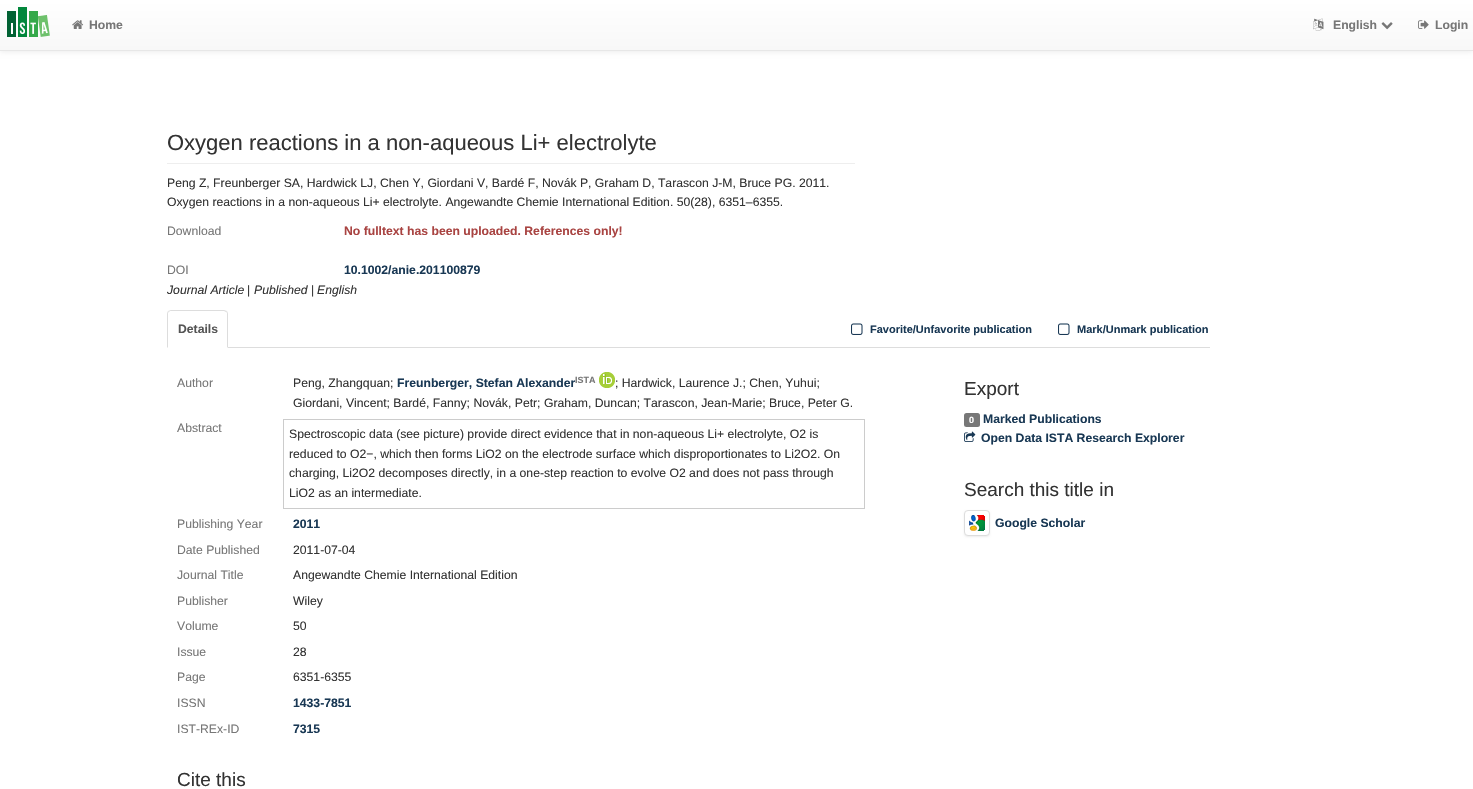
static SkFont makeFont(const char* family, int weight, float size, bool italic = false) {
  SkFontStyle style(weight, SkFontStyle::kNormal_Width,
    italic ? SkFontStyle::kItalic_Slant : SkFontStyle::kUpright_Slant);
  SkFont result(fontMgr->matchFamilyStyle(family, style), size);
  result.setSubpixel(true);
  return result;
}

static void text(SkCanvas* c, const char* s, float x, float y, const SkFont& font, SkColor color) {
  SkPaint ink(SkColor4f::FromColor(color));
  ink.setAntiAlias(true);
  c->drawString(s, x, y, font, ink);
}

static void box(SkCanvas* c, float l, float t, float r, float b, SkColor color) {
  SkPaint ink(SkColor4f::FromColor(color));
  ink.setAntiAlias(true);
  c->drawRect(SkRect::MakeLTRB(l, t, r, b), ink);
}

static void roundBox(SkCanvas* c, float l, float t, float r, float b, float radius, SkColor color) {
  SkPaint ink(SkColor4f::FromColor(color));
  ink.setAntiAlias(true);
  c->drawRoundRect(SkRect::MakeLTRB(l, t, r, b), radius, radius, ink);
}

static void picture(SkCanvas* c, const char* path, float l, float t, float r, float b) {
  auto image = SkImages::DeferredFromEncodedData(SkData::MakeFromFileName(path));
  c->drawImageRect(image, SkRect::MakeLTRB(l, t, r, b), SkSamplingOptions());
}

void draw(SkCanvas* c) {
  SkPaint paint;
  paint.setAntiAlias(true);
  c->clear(0xffffffff);
  paint.setColor(0x12000000);
  paint.setMaskFilter(SkMaskFilter::MakeBlur(kNormal_SkBlurStyle, 2.5f));
  c->drawRect(SkRect::MakeLTRB(0, 1, 1473, 52), paint);
  paint.setMaskFilter(nullptr);
  {
    const SkColor colors[] = {0xffffffff, 0xfff8f8f8};
    const float stops[] = {0, 1};
    const SkPoint ends[] = {{737, 0}, {737, 50}};
    paint.setShader(SkGradientShader::MakeLinear(ends, colors, stops, 2, SkTileMode::kClamp));
    paint.setAlpha(255);
  }
  c->drawRect(SkRect::MakeLTRB(0, 0, 1473, 50), paint);
  box(c, 0, 50, 1473, 51, 0xffe7e7e7);
  picture(c, "img_01.png", 7, 7, 50, 37);
  picture(c, "img_02.png", 72, 20, 84, 29);
  SkFont face1 = makeFont("Liberation Sans", 700, 12.2f);
  text(c, "Home", 89, 29, face1, 0xff777777);
  picture(c, "img_03.png", 1313, 18, 1324, 31);
  text(c, "English", 1333, 29, face1, 0xff777777);
  picture(c, "img_04.png", 1381, 22, 1393, 30);
  picture(c, "img_05.png", 1418, 20, 1429, 29);
  text(c, "Login", 1435, 29, face1, 0xff777777);
  box(c, 167, 163, 855, 164, 0xffeeeeee);
  SkFont face2 = makeFont("Liberation Sans", 400, 22);
  text(c, "Oxygen reactions in a non-aqueous Li+ electrolyte", 167, 150, face2, 0xff333333);
  SkFont face3 = makeFont("Liberation Sans", 400, 12.2f);
  text(c, "Peng Z, Freunberger SA, Hardwick LJ, Chen Y, Giordani V, Bardé F, Novák P, Graham D, Tarascon J-M, Bruce PG. 2011.", 167, 187, face3, 0xff333333);
  text(c, "Oxygen reactions in a non-aqueous Li+ electrolyte. Angewandte Chemie International Edition. 50(28), 6351–6355.", 167, 206, face3, 0xff333333);
  text(c, "Download", 167, 235, face3, 0xff777777);
  text(c, "No fulltext has been uploaded. References only!", 344, 235, face1, 0xffa94442);
  text(c, "DOI", 167, 274, face3, 0xff777777);
  text(c, "10.1002/anie.201100879", 344, 274, face1, 0xff193854);
  SkFont face4 = makeFont("Liberation Sans", 400, 12.2f, true);
  text(c, "Journal Article", 167, 294, face4, 0xff333333);
  text(c, "|", 247, 294, face3, 0xff333333);
  text(c, "Published", 254, 294, face4, 0xff333333);
  text(c, "|", 311, 294, face3, 0xff333333);
  text(c, "English", 317, 294, face4, 0xff333333);
  box(c, 228, 347, 1210, 348, 0xffdddddd);
  paint.setShader(nullptr);
  paint.setColor(0xffdddddd);
  c->drawPath(SkPathBuilder().moveTo(171, 310).lineTo(168, 311).lineTo(169, 312).lineTo(170, 311).lineTo(224, 311).lineTo(226, 312).lineTo(227, 311).lineTo(224, 310).close().detach(), paint);
  c->drawPath(SkPathBuilder().moveTo(228, 348).lineTo(228, 314).cubicTo(228, 313, 227.5f, 312, 227, 311).lineTo(226, 312).cubicTo(227, 312, 227, 313, 227, 314).lineTo(227, 347).close().moveTo(167, 348).lineTo(168, 347).lineTo(168, 314).cubicTo(168, 313, 168, 312, 169, 312).lineTo(168, 311).cubicTo(167.5f, 312, 167, 313, 167, 314).close().detach(), paint);
  text(c, "Details", 178, 333, face1, 0xff555555);
  picture(c, "img_06.png", 851, 323, 863, 335);
  SkFont face5 = makeFont("Liberation Sans", 700, 11);
  text(c, "Favorite/Unfavorite publication", 870, 333, face5, 0xff193854);
  picture(c, "img_06.png", 1058, 323, 1070, 335);
  text(c, "Mark/Unmark publication", 1077, 333, face5, 0xff193854);
  text(c, "Author", 177, 387, face3, 0xff777777);
  text(c, "Peng, Zhangquan;", 293, 387, face3, 0xff333333);
  text(c, "Freunberger, Stefan Alexander", 397, 387, face1, 0xff193854);
  SkFont face6 = makeFont("Liberation Sans", 700, 9);
  text(c, "ISTA", 575, 383, face6, 0xff777777);
  picture(c, "img_07.png", 599, 372, 615, 388);
  text(c, "; Hardwick, Laurence J.; Chen, Yuhui;", 615, 387, face3, 0xff333333);
  text(c, "Giordani, Vincent; Bardé, Fanny; Novák, Petr; Graham, Duncan; Tarascon, Jean-Marie; Bruce, Peter G.", 293, 407, face3, 0xff333333);
  text(c, "Abstract", 177, 432, face3, 0xff777777);
  paint.setStyle(SkPaint::kStroke_Style);
  paint.setStrokeWidth(1);
  paint.setColor(0xffcccccc);
  c->drawRect(SkRect::MakeLTRB(283.5f, 419.5f, 864.5f, 508.5f), paint);
  text(c, "Spectroscopic data (see picture) provide direct evidence that in non‐aqueous Li+ electrolyte, O2 is", 289, 438, face3, 0xff333333);
  text(c, "reduced to O2−, which then forms LiO2 on the electrode surface which disproportionates to Li2O2. On", 289, 458, face3, 0xff333333);
  text(c, "charging, Li2O2 decomposes directly, in a one‐step reaction to evolve O2 and does not pass through", 289, 477, face3, 0xff333333);
  text(c, "LiO2 as an intermediate.", 289, 497, face3, 0xff333333);
  text(c, "Publishing Year", 177, 528, face3, 0xff777777);
  text(c, "2011", 293, 528, face1, 0xff193854);
  text(c, "Date Published", 177, 554, face3, 0xff777777);
  text(c, "2011-07-04", 293, 554, face3, 0xff333333);
  text(c, "Journal Title", 177, 579, face3, 0xff777777);
  text(c, "Angewandte Chemie International Edition", 293, 579, face3, 0xff333333);
  text(c, "Publisher", 177, 605, face3, 0xff777777);
  text(c, "Wiley", 293, 605, face3, 0xff333333);
  text(c, "Volume", 177, 630, face3, 0xff777777);
  text(c, "50", 293, 630, face3, 0xff333333);
  text(c, "Issue", 177, 656, face3, 0xff777777);
  text(c, "28", 293, 656, face3, 0xff333333);
  text(c, "Page", 177, 681, face3, 0xff777777);
  text(c, "6351-6355", 293, 681, face3, 0xff333333);
  text(c, "ISSN", 177, 707, face3, 0xff777777);
  text(c, "1433-7851", 293, 707, face1, 0xff193854);
  text(c, "IST-REx-ID", 177, 733, face3, 0xff777777);
  text(c, "7315", 293, 733, face1, 0xff193854);
  SkFont face7 = makeFont("Liberation Sans", 400, 19);
  text(c, "Cite this", 177, 786, face7, 0xff333333);
  text(c, "Export", 964, 395, face7, 0xff333333);
  roundBox(c, 964, 413, 980, 427, 2.5f, 0xff777777);
  text(c, "0", 969, 423, face6, 0xffffffff);
  text(c, "Marked Publications", 983, 423, face1, 0xff193854);
  picture(c, "img_08.png", 964, 431, 976, 442);
  text(c, "Open Data ISTA Research Explorer", 981, 442, face1, 0xff193854);
  text(c, "Search this title in", 964, 496, face7, 0xff333333);
  paint.setStyle(SkPaint::kFill_Style);
  paint.setColor(0x12000000);
  paint.setMaskFilter(SkMaskFilter::MakeBlur(kNormal_SkBlurStyle, 1));
  c->drawRoundRect(SkRect::MakeLTRB(964, 511, 990, 537), 4, 4, paint);
  paint.setMaskFilter(nullptr);
  paint.setColor(0xffffffff);
  c->drawRoundRect(SkRect::MakeLTRB(964.5f, 510.5f, 989.5f, 535.5f), 3.5f, 3.5f, paint);
  paint.setStyle(SkPaint::kStroke_Style);
  paint.setColor(0xffdddddd);
  c->drawRoundRect(SkRect::MakeLTRB(964.5f, 510.5f, 989.5f, 535.5f), 3.5f, 3.5f, paint);
  picture(c, "img_09.png", 969, 515, 985, 531);
  text(c, "Google Scholar", 995, 527, face1, 0xff193854);
}
